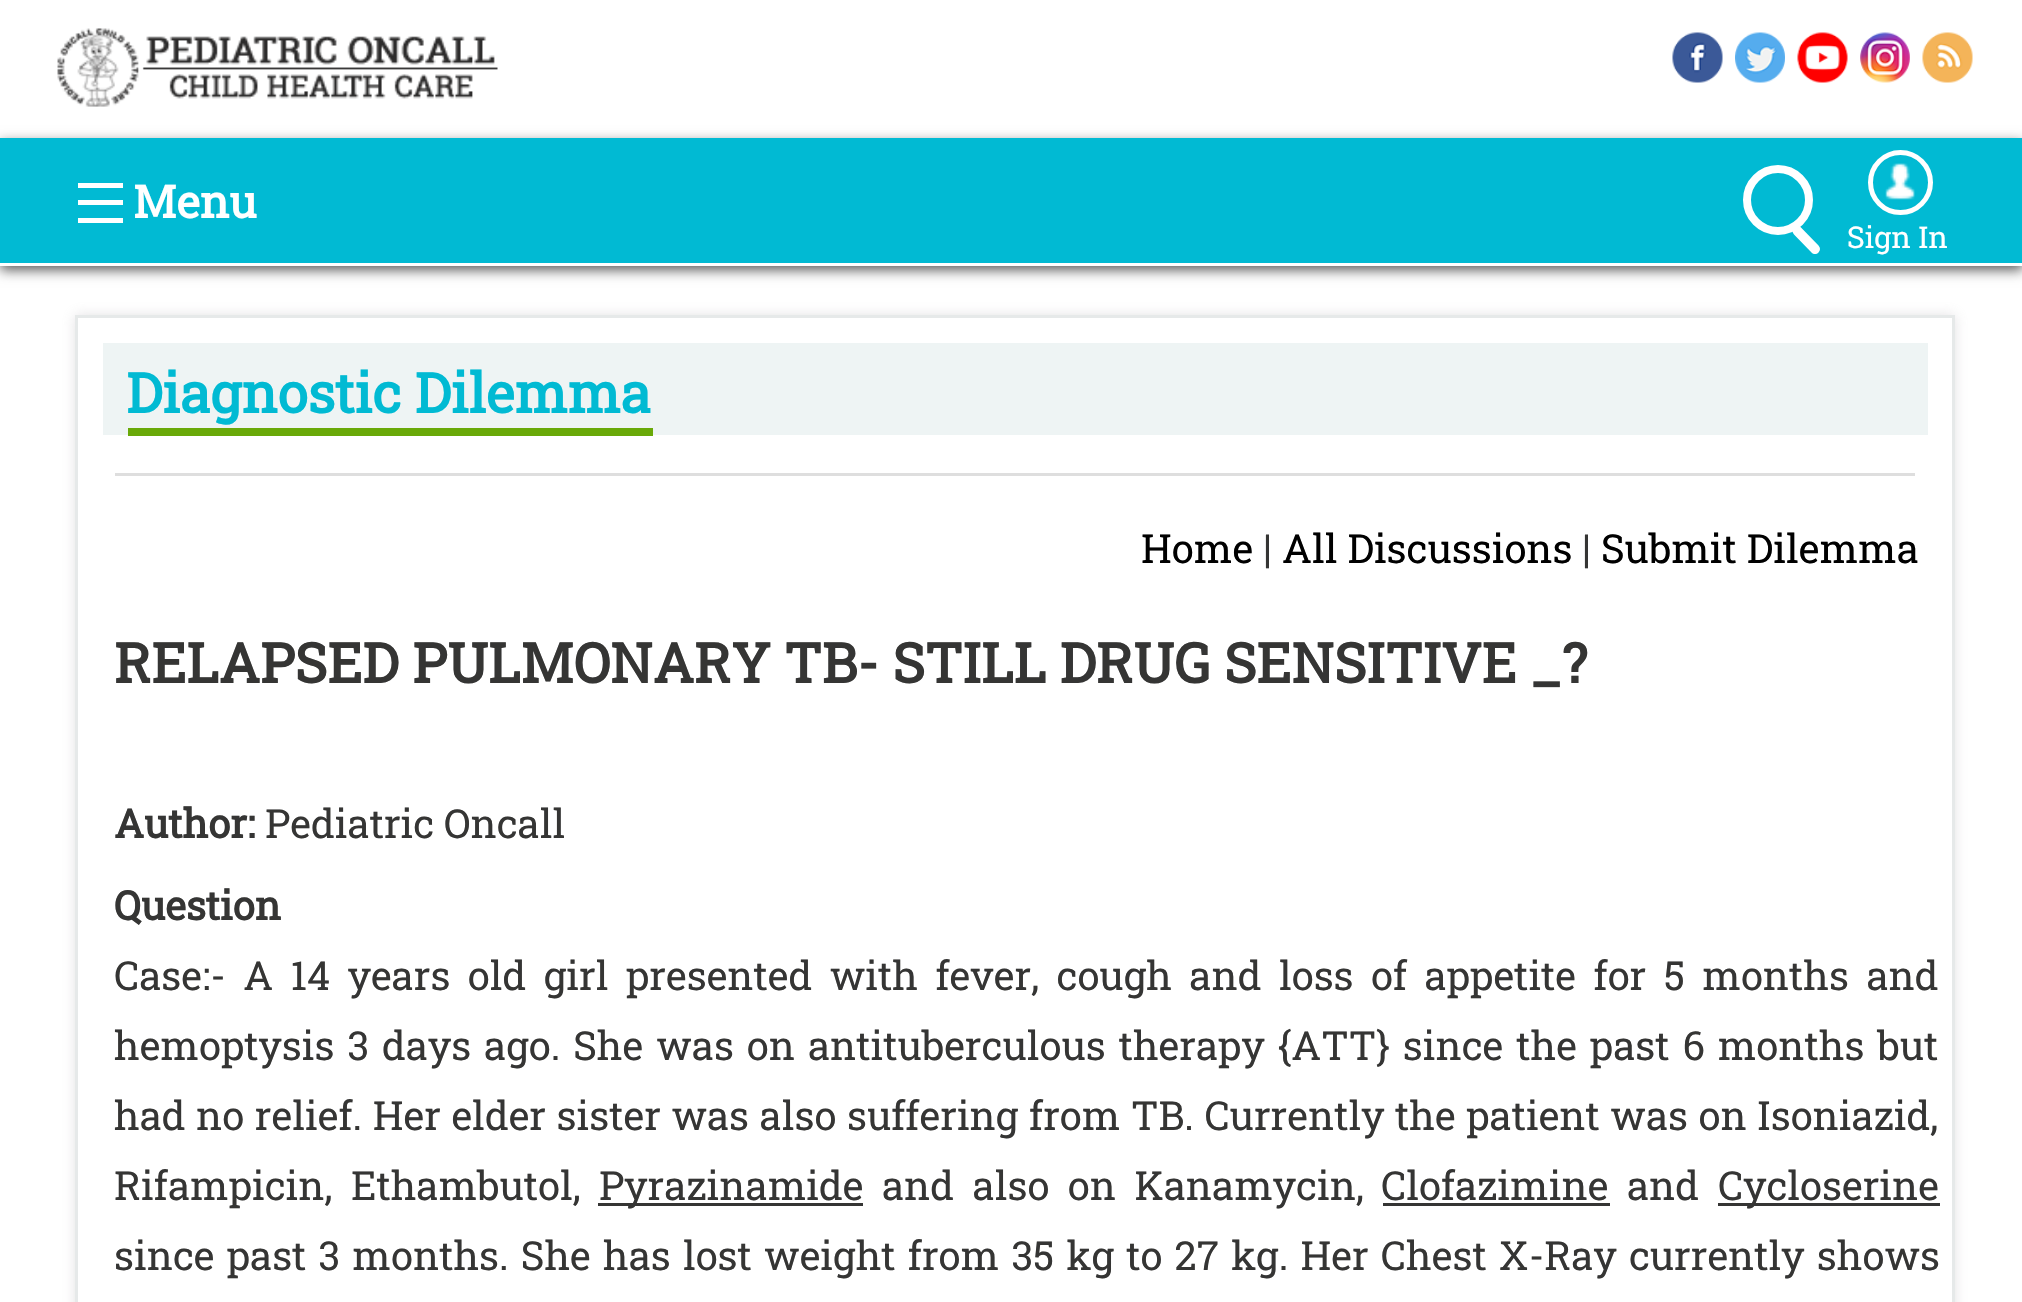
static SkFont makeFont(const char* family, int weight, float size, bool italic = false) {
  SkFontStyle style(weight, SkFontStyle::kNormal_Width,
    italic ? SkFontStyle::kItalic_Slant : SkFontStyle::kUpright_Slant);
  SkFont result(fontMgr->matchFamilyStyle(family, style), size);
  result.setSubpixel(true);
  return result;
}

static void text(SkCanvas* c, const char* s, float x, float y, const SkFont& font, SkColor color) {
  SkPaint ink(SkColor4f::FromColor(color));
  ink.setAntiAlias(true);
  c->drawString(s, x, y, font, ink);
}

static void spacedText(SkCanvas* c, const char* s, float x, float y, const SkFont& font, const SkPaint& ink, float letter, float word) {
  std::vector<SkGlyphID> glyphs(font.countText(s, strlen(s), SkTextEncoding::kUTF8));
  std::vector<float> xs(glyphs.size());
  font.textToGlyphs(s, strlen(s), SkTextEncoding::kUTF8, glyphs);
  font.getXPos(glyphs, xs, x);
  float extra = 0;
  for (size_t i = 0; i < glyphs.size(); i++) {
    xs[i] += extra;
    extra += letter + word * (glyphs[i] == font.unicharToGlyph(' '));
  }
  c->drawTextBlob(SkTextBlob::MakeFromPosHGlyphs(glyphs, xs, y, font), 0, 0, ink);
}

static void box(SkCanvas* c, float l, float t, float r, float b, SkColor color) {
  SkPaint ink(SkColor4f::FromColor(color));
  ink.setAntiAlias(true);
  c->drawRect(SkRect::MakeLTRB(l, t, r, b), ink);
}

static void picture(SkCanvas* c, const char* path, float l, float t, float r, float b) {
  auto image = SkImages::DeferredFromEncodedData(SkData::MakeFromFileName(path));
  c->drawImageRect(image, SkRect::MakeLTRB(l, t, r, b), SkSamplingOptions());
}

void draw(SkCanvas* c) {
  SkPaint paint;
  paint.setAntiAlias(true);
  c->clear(0xffffffff);
  picture(c, "img_01.png", 57, 28, 498, 107);
  picture(c, "img_02.png", 1672, 32, 1723, 83);
  picture(c, "img_03.png", 1735, 32, 1785, 83);
  picture(c, "img_04.png", 1797, 32, 1848, 83);
  picture(c, "img_05.png", 1860, 32, 1910, 83);
  picture(c, "img_06.png", 1922, 32, 1973, 83);
  paint.setColor(0xa6000000);
  paint.setMaskFilter(SkMaskFilter::MakeBlur(kNormal_SkBlurStyle, 6));
  c->drawRect(SkRect::MakeLTRB(0, 143, 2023, 270), paint);
  paint.setMaskFilter(nullptr);
  box(c, 0, 138, 2022, 263, 0xff01bad3);
  box(c, 0, 263, 2022, 266, 0xffffffff);
  box(c, 78, 218, 123, 223, 0xffffffff);
  box(c, 78, 200, 123, 205, 0xffffffff);
  box(c, 78, 183, 123, 188, 0xffffffff);
  SkFont face1 = makeFont("Roboto Slab", 700, 45);
  text(c, "Menu", 133, 218, face1, 0xffffffff);
  paint.setStyle(SkPaint::kStroke_Style);
  paint.setStrokeWidth(8);
  paint.setColor(0xffffffff);
  c->drawCircle(1778, 200, 31, paint);
  paint.setStyle(SkPaint::kFill_Style);
  c->drawPath(SkPathBuilder().moveTo(1801, 227.5f).lineTo(1818.5f, 245.5f).cubicTo(1820.5f, 247.5f, 1820.5f, 250.5f, 1818.5f, 252.5f).cubicTo(1816.5f, 254.5f, 1813.5f, 254.5f, 1811.5f, 252.5f).lineTo(1794, 234.5f).cubicTo(1792, 232.5f, 1792, 229.5f, 1794, 227.5f).cubicTo(1796, 225.5f, 1799, 225.5f, 1801, 227.5f).close().detach(), paint);
  paint.setStyle(SkPaint::kStroke_Style);
  paint.setStrokeWidth(5);
  c->drawCircle(1900.5f, 182.5f, 30, paint);
  picture(c, "img_07.png", 1874, 156, 1915, 209);
  SkFont face2 = makeFont("Roboto Slab", 400, 30);
  text(c, "Sign In", 1847, 248, face2, 0xffffffff);
  c->save();
  c->clipPath(SkPathBuilder(SkPathFillType::kEvenOdd).moveTo(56, 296).lineTo(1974, 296).lineTo(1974, 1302).lineTo(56, 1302).close().moveTo(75, 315).lineTo(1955, 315).lineTo(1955, 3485).lineTo(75, 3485).close().detach(), true);
  paint.setStyle(SkPaint::kFill_Style);
  paint.setColor(0x4da39da3);
  paint.setMaskFilter(SkMaskFilter::MakeBlur(kNormal_SkBlurStyle, 6));
  c->drawRect(SkRect::MakeLTRB(75, 315, 1955, 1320), paint);
  paint.setMaskFilter(nullptr);
  c->restore();
  paint.setStyle(SkPaint::kStroke_Style);
  paint.setStrokeWidth(3);
  paint.setColor(0xffe6e9e9);
  c->drawRect(SkRect::MakeLTRB(76.5f, 316.5f, 1953.5f, 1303.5f), paint);
  box(c, 103, 343, 1928, 435, 0xffeef4f4);
  SkFont face3 = makeFont("Roboto Slab", 700, 55);
  text(c, "Diagnostic Dilemma", 126, 413, face3, 0xff01bad3);
  box(c, 128, 428, 653, 436, 0xff69a908);
  box(c, 115, 473, 1915, 476, 0xffdedede);
  SkFont face4 = makeFont("Roboto Slab", 400, 40);
  text(c, "Home", 1141, 563, face4, 0xff000000);
  text(c, "|", 1263, 563, face4, 0xff353534);
  text(c, "All Discussions", 1282, 563, face4, 0xff000000);
  text(c, "|", 1582, 563, face4, 0xff353534);
  text(c, "Submit Dilemma", 1601, 563, face4, 0xff000000);
  text(c, "RELAPSED PULMONARY TB- STILL DRUG SENSITIVE _?", 114, 683, face3, 0xff353534);
  SkFont face5 = makeFont("Roboto Slab", 700, 40);
  text(c, "Author:", 114, 838, face5, 0xff353534);
  text(c, "Pediatric Oncall", 265, 838, face4, 0xff353534);
  text(c, "Question", 114, 920, face5, 0xff353534);
  paint.setStyle(SkPaint::kFill_Style);
  paint.setColor(0xff353534);
  spacedText(c, "Case:- A 14 years old girl presented with fever, cough and loss of appetite for 5 months and", 114, 990, face4, paint, 0, 7.5f);
  spacedText(c, "hemoptysis 3 days ago. She was on antituberculous therapy {ATT} since the past 6 months but", 114, 1060, face4, paint, 0, 3);
  spacedText(c, "had no relief. Her elder sister was also suffering from TB. Currently the patient was on Isoniazid,", 114, 1130, face4, paint, 0, 0.6f);
  spacedText(c, "Rifampicin, Ethambutol,", 114, 1200, face4, paint, 0, 8.5f);
  box(c, 598, 1203, 863, 1206, 0xff353534);
  text(c, "Pyrazinamide", 599, 1200, face4, 0xff353534);
  spacedText(c, "and also on Kanamycin,", 882, 1200, face4, paint, 0, 8.5f);
  text(c, "Clofazimine", 1381, 1200, face4, 0xff353534);
  box(c, 1383, 1203, 1610, 1206, 0xff353534);
  text(c, "and", 1627, 1200, face4, 0xff353534);
  box(c, 1718, 1203, 1940, 1206, 0xff353534);
  text(c, "Cycloserine", 1718, 1200, face4, 0xff353534);
  spacedText(c, "since past 3 months. She has lost weight from 35 kg to 27 kg. Her Chest X-Ray currently shows", 114, 1270, face4, paint, 0, 2.25f);
}
